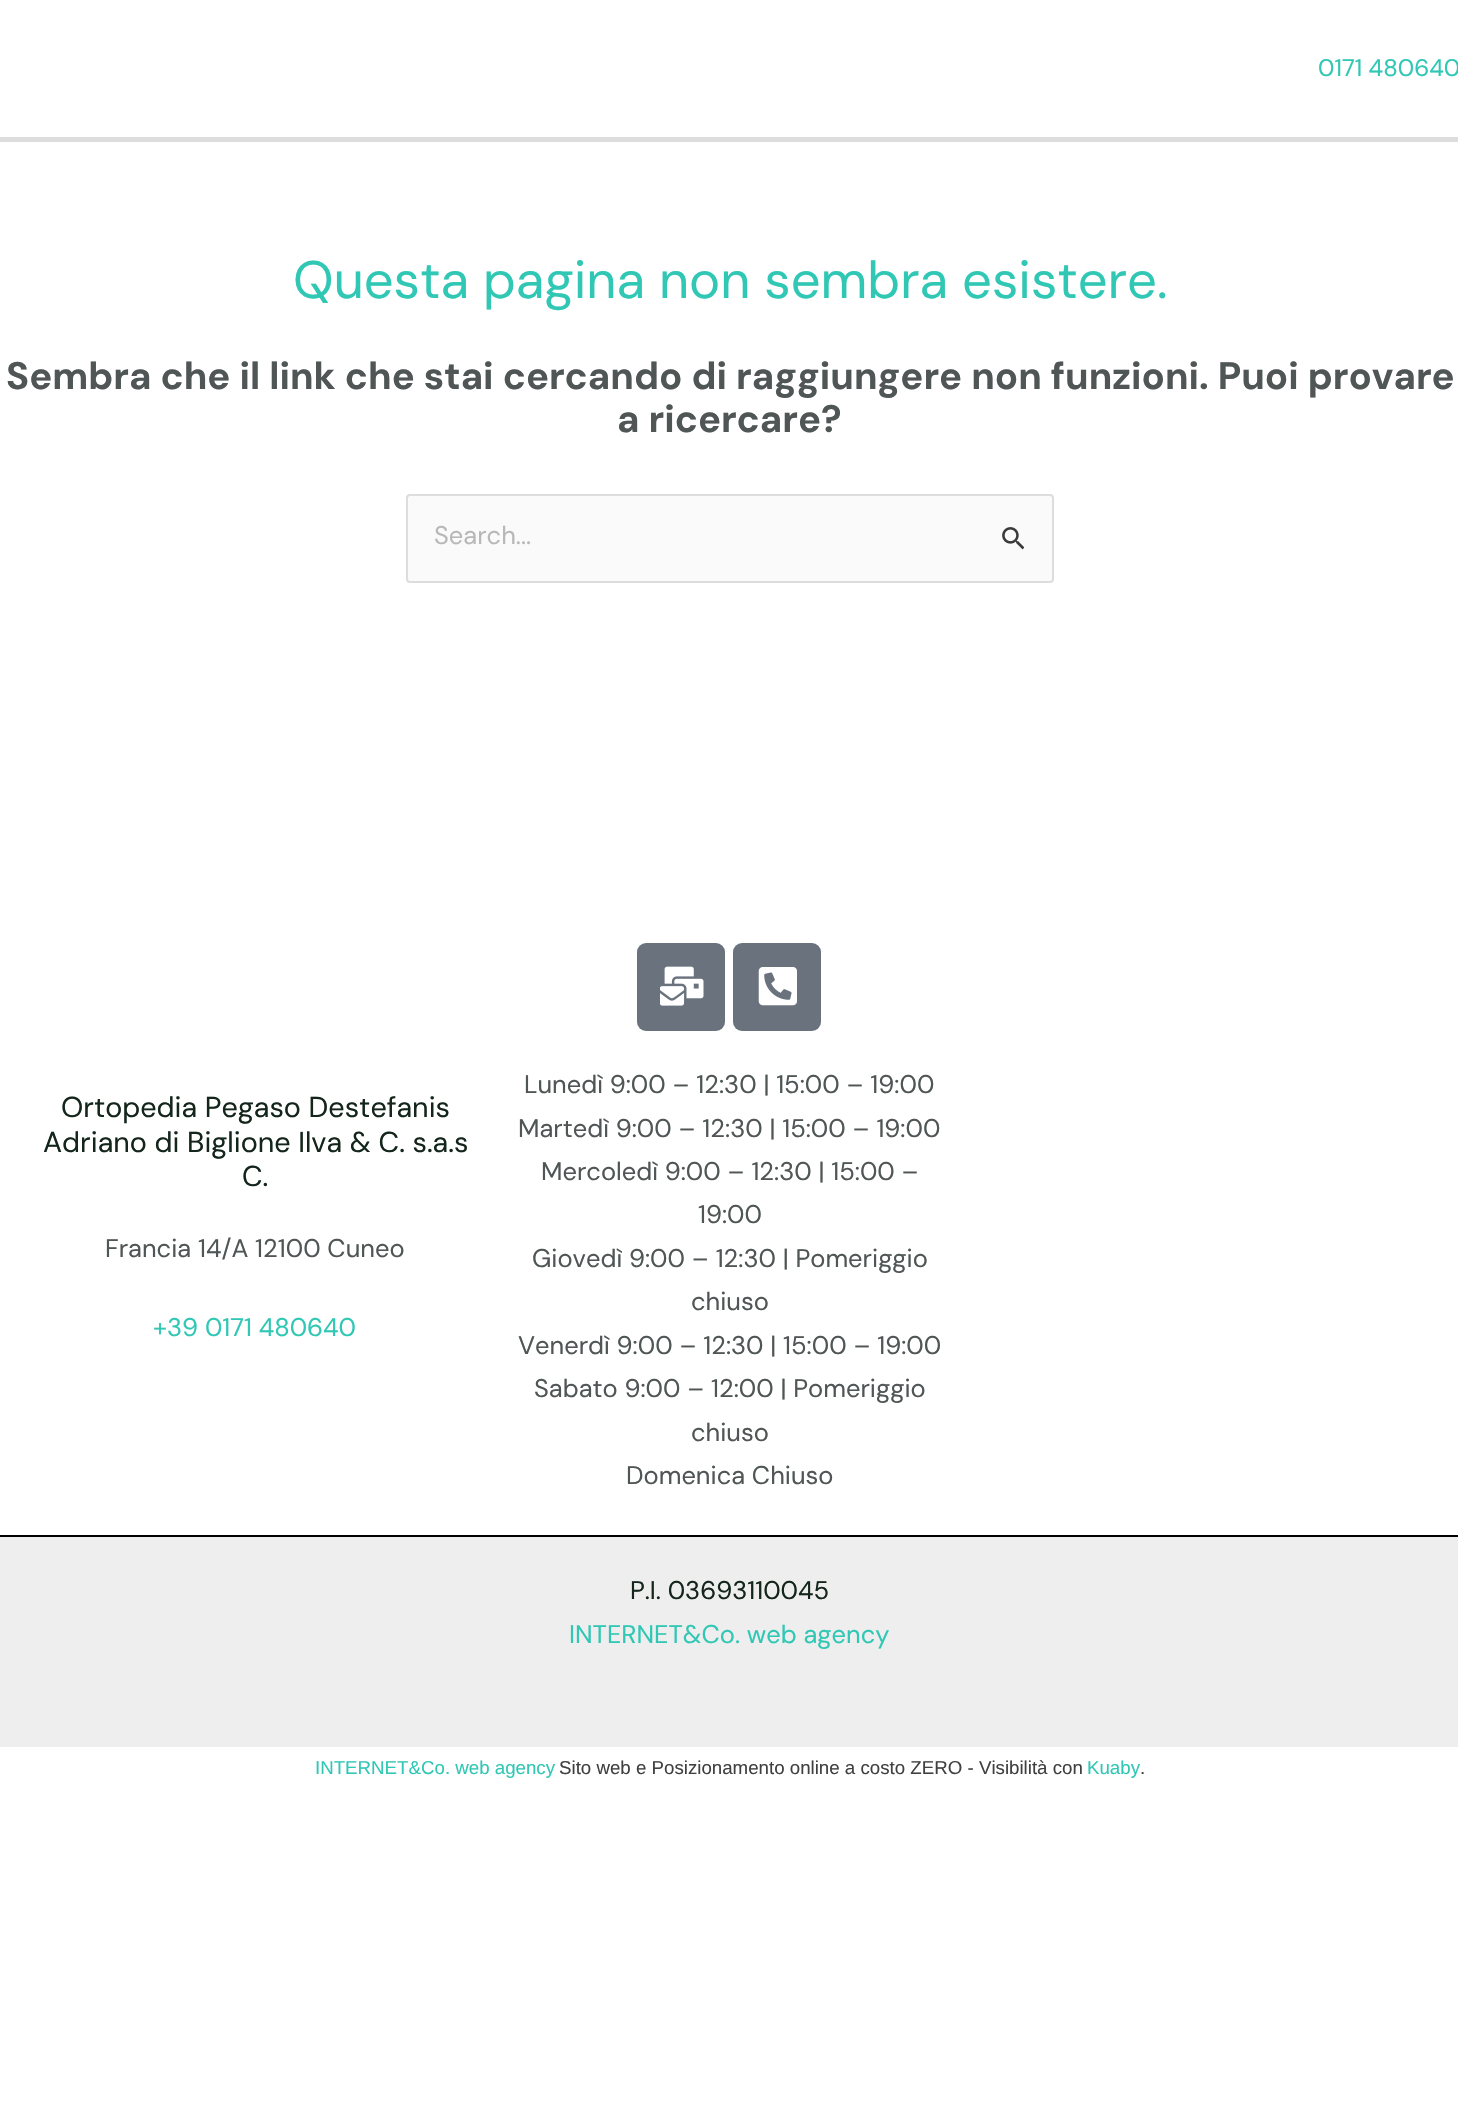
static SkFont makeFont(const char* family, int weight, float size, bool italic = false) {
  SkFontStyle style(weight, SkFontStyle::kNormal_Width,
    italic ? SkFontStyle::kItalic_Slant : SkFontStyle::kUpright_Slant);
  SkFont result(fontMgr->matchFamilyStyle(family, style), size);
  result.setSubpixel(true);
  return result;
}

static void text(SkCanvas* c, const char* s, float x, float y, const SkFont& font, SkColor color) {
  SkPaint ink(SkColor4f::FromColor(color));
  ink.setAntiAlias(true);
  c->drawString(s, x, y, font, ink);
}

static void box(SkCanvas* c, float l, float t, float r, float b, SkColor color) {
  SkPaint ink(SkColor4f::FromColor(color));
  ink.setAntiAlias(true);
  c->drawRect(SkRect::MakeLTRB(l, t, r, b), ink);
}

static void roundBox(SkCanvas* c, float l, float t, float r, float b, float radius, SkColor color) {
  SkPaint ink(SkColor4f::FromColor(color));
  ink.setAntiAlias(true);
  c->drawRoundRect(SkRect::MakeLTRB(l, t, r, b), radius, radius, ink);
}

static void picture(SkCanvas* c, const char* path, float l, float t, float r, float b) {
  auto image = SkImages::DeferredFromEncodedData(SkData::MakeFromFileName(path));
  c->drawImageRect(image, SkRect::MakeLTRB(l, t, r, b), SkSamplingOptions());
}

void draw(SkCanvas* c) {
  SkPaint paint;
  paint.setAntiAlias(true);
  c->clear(0xffffffff);
  box(c, 0, 137, 1458, 142, 0xffdddddd);
  SkFont face1 = makeFont("DM Sans", 400, 24);
  text(c, "0171 480640", 1318, 76, face1, 0xff30c7b5);
  SkFont face2 = makeFont("DM Sans", 400, 52.5f);
  text(c, "Questa pagina non sembra esistere.", 293, 298, face2, 0xff30c7b5);
  SkFont face3 = makeFont("DM Sans", 700, 38.3f);
  text(c, "Sembra che il link che stai cercando di raggiungere non funzioni. Puoi provare", 6, 389, face3, 0xff4f5655);
  text(c, "a ricercare?", 617, 432, face3, 0xff4f5655);
  paint.setColor(0xfffafafa);
  c->drawRoundRect(SkRect::MakeLTRB(407, 495, 1053, 582), 3, 3, paint);
  paint.setStyle(SkPaint::kStroke_Style);
  paint.setStrokeWidth(2);
  paint.setColor(0xffdddddd);
  c->drawRoundRect(SkRect::MakeLTRB(407, 495, 1053, 582), 3, 3, paint);
  SkFont face4 = makeFont("DM Sans", 400, 25.5f);
  text(c, "Search...", 434, 544, face4, 0xffb8b8b8);
  picture(c, "img_01.png", 1002, 527, 1024, 550);
  SkFont face5 = makeFont("DM Sans", 400, 28.75f);
  text(c, "Ortopedia Pegaso Destefanis", 61, 1117, face5, 0xff14261c);
  text(c, "Adriano di Biglione Ilva & C. s.a.s", 43, 1152, face5, 0xff14261c);
  text(c, "C.", 242, 1186, face5, 0xff14261c);
  text(c, "Francia 14/A 12100 Cuneo", 105, 1257, face4, 0xff4f5655);
  text(c, "+39 0171 480640", 153, 1336, face4, 0xff30c7b5);
  roundBox(c, 637, 943, 725, 1031, 9, 0xff69727d);
  picture(c, "img_02.png", 660, 966, 704, 1006);
  roundBox(c, 733, 943, 821, 1031, 9, 0xff69727d);
  picture(c, "img_03.png", 758, 967, 797, 1006);
  text(c, "Lunedì 9:00 – 12:30 | 15:00 – 19:00", 524, 1093, face4, 0xff4f5655);
  text(c, "Martedì 9:00 – 12:30 | 15:00 – 19:00", 518, 1137, face4, 0xff4f5655);
  text(c, "Mercoledì 9:00 – 12:30 | 15:00 –", 541, 1180, face4, 0xff4f5655);
  text(c, "19:00", 698, 1223, face4, 0xff4f5655);
  text(c, "Giovedì 9:00 – 12:30 | Pomeriggio", 532, 1267, face4, 0xff4f5655);
  text(c, "chiuso", 691, 1310, face4, 0xff4f5655);
  text(c, "Venerdì 9:00 – 12:30 | 15:00 – 19:00", 518, 1354, face4, 0xff4f5655);
  text(c, "Sabato 9:00 – 12:00 | Pomeriggio", 534, 1397, face4, 0xff4f5655);
  text(c, "chiuso", 691, 1441, face4, 0xff4f5655);
  text(c, "Domenica Chiuso", 626, 1484, face4, 0xff4f5655);
  box(c, 0, 1537, 1458, 1747, 0xffeeeeee);
  box(c, 0, 1535, 1458, 1537, 0xff000000);
  text(c, "P.I. 03693110045", 630, 1599, face4, 0xff14261c);
  text(c, "INTERNET&Co. web agency", 569, 1643, face4, 0xff30c7b5);
  SkFont face6 = makeFont("Liberation Sans", 400, 18.7f);
  text(c, "INTERNET&Co. web agency", 315, 1774, face6, 0xff30c7b5);
  text(c, "Sito web e Posizionamento online a costo ZERO - Visibilità con", 559, 1774, face6, 0xff404040);
  text(c, "Kuaby", 1087, 1774, face6, 0xff30c7b5);
  text(c, ".", 1140, 1774, face6, 0xff404040);
}
